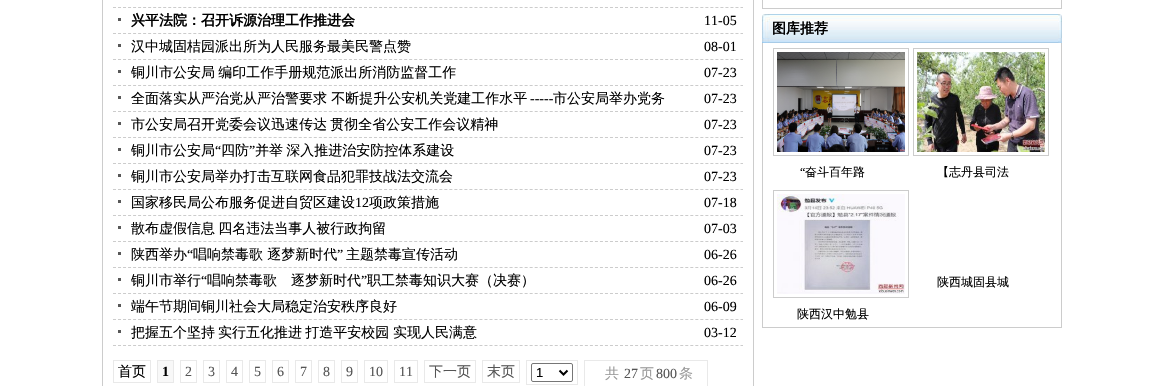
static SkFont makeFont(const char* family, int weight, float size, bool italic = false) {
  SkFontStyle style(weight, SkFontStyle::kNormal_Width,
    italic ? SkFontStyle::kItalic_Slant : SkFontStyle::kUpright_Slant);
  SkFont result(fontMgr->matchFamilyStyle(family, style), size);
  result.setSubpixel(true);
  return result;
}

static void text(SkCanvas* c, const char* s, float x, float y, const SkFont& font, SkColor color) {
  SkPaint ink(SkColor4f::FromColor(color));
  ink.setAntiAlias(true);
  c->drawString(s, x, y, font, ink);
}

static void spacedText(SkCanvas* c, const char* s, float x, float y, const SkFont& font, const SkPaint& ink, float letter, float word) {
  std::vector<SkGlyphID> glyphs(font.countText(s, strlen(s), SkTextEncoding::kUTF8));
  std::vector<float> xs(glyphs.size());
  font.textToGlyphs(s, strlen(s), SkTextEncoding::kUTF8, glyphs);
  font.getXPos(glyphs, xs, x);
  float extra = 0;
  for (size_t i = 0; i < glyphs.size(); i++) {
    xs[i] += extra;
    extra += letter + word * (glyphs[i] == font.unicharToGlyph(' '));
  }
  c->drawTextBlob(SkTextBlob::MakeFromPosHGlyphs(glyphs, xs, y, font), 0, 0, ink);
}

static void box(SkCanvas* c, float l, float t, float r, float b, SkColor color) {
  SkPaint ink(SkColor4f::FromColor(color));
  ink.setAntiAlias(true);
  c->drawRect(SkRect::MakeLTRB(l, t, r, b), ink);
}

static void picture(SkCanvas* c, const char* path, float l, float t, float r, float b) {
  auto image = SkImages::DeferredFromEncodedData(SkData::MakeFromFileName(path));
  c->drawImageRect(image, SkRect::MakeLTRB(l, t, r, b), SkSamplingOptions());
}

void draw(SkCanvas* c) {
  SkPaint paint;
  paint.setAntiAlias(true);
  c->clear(0xffffffff);
  paint.setStyle(SkPaint::kStroke_Style);
  paint.setStrokeWidth(1);
  paint.setColor(0xffcccccc);
  c->drawRect(SkRect::MakeLTRB(102.5f, -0.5f, 753.5f, 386.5f), paint);
  paint.setPathEffect(SkDashPathEffect::Make({{3, 2.02f}}, 0));
  c->drawPath(SkPathBuilder().moveTo(113, 7.5f).lineTo(743, 7.5f).detach(), paint);
  paint.setPathEffect(nullptr);
  box(c, 118, 18, 121, 21, 0xff585858);
  paint.setPathEffect(SkDashPathEffect::Make({{3, 2.02f}}, 0));
  c->drawPath(SkPathBuilder().moveTo(113, 33.5f).lineTo(743, 33.5f).detach(), paint);
  paint.setPathEffect(nullptr);
  SkFont face1 = makeFont("WenQuanYi Zen Hei", 700, 14);
  text(c, "兴平法院：召开诉源治理工作推进会", 131, 25, face1, 0xff000000);
  SkFont face2 = makeFont("Liberation Serif", 400, 14);
  text(c, "11-05", 704, 25, face2, 0xff000000);
  box(c, 118, 44, 121, 47, 0xff585858);
  paint.setPathEffect(SkDashPathEffect::Make({{3, 2.02f}}, 0));
  c->drawPath(SkPathBuilder().moveTo(113, 59.5f).lineTo(743, 59.5f).detach(), paint);
  paint.setPathEffect(nullptr);
  SkFont face3 = makeFont("WenQuanYi Zen Hei", 500, 14);
  text(c, "汉中城固桔园派出所为人民服务最美民警点赞", 131, 51, face3, 0xff000000);
  text(c, "08-01", 704, 51, face2, 0xff000000);
  box(c, 118, 70, 121, 73, 0xff585858);
  paint.setPathEffect(SkDashPathEffect::Make({{3, 2.02f}}, 0));
  c->drawPath(SkPathBuilder().moveTo(113, 85.5f).lineTo(743, 85.5f).detach(), paint);
  paint.setPathEffect(nullptr);
  paint.setStyle(SkPaint::kFill_Style);
  paint.setColor(0xff000000);
  spacedText(c, "铜川市公安局 编印工作手册规范派出所消防监督工作", 131, 77, face3, paint, 0, -1);
  text(c, "07-23", 704, 77, face2, 0xff000000);
  box(c, 118, 96, 121, 99, 0xff585858);
  paint.setStyle(SkPaint::kStroke_Style);
  paint.setColor(0xffcccccc);
  paint.setPathEffect(SkDashPathEffect::Make({{3, 2.02f}}, 0));
  c->drawPath(SkPathBuilder().moveTo(113, 111.5f).lineTo(743, 111.5f).detach(), paint);
  paint.setPathEffect(nullptr);
  text(c, "全面落实从严治党从严治警要求 不断提升公安机关党建工作水平", 131, 103, face3, 0xff000000);
  text(c, "-----", 530, 103, face2, 0xff000000);
  text(c, "市公安局举办党务", 553, 103, face3, 0xff000000);
  text(c, "07-23", 704, 103, face2, 0xff000000);
  box(c, 118, 122, 121, 125, 0xff585858);
  paint.setPathEffect(SkDashPathEffect::Make({{3, 2.02f}}, 0));
  c->drawPath(SkPathBuilder().moveTo(113, 137.5f).lineTo(743, 137.5f).detach(), paint);
  paint.setPathEffect(nullptr);
  paint.setStyle(SkPaint::kFill_Style);
  paint.setColor(0xff000000);
  spacedText(c, "市公安局召开党委会议迅速传达 贯彻全省公安工作会议精神", 131, 129, face3, paint, 0, -1);
  text(c, "07-23", 704, 129, face2, 0xff000000);
  box(c, 118, 148, 121, 151, 0xff585858);
  paint.setStyle(SkPaint::kStroke_Style);
  paint.setColor(0xffcccccc);
  paint.setPathEffect(SkDashPathEffect::Make({{3, 2.02f}}, 0));
  c->drawPath(SkPathBuilder().moveTo(113, 163.5f).lineTo(743, 163.5f).detach(), paint);
  paint.setPathEffect(nullptr);
  text(c, "铜川市公安局", 131, 155, face3, 0xff000000);
  text(c, "“", 215, 155, face2, 0xff000000);
  text(c, "四防", 221, 155, face3, 0xff000000);
  text(c, "”", 249, 155, face2, 0xff000000);
  paint.setStyle(SkPaint::kFill_Style);
  paint.setColor(0xff000000);
  spacedText(c, "并举 深入推进治安防控体系建设", 255, 155, face3, paint, 0, -1);
  text(c, "07-23", 704, 155, face2, 0xff000000);
  box(c, 118, 174, 121, 177, 0xff585858);
  paint.setStyle(SkPaint::kStroke_Style);
  paint.setColor(0xffcccccc);
  paint.setPathEffect(SkDashPathEffect::Make({{3, 2.02f}}, 0));
  c->drawPath(SkPathBuilder().moveTo(113, 189.5f).lineTo(743, 189.5f).detach(), paint);
  paint.setPathEffect(nullptr);
  text(c, "铜川市公安局举办打击互联网食品犯罪技战法交流会", 131, 181, face3, 0xff000000);
  text(c, "07-23", 704, 181, face2, 0xff000000);
  box(c, 118, 200, 121, 203, 0xff585858);
  paint.setPathEffect(SkDashPathEffect::Make({{3, 2.02f}}, 0));
  c->drawPath(SkPathBuilder().moveTo(113, 215.5f).lineTo(743, 215.5f).detach(), paint);
  paint.setPathEffect(nullptr);
  text(c, "国家移民局公布服务促进自贸区建设", 131, 207, face3, 0xff000000);
  text(c, "12", 355, 207, face2, 0xff000000);
  text(c, "项政策措施", 369, 207, face3, 0xff000000);
  text(c, "07-18", 704, 207, face2, 0xff000000);
  box(c, 118, 226, 121, 229, 0xff585858);
  paint.setPathEffect(SkDashPathEffect::Make({{3, 2.02f}}, 0));
  c->drawPath(SkPathBuilder().moveTo(113, 241.5f).lineTo(743, 241.5f).detach(), paint);
  paint.setPathEffect(nullptr);
  paint.setStyle(SkPaint::kFill_Style);
  paint.setColor(0xff000000);
  spacedText(c, "散布虚假信息 四名违法当事人被行政拘留", 131, 233, face3, paint, 0, -1);
  text(c, "07-03", 704, 233, face2, 0xff000000);
  box(c, 118, 252, 121, 255, 0xff585858);
  paint.setStyle(SkPaint::kStroke_Style);
  paint.setColor(0xffcccccc);
  paint.setPathEffect(SkDashPathEffect::Make({{3, 2.02f}}, 0));
  c->drawPath(SkPathBuilder().moveTo(113, 267.5f).lineTo(743, 267.5f).detach(), paint);
  paint.setPathEffect(nullptr);
  text(c, "陕西举办", 131, 259, face3, 0xff000000);
  text(c, "“", 187, 259, face2, 0xff000000);
  text(c, "唱响禁毒歌 逐梦新时代", 193, 259, face3, 0xff000000);
  text(c, "”", 337, 259, face2, 0xff000000);
  text(c, "主题禁毒宣传活动", 346, 259, face3, 0xff000000);
  text(c, "06-26", 704, 259, face2, 0xff000000);
  box(c, 118, 278, 121, 281, 0xff585858);
  paint.setPathEffect(SkDashPathEffect::Make({{3, 2.02f}}, 0));
  c->drawPath(SkPathBuilder().moveTo(113, 293.5f).lineTo(743, 293.5f).detach(), paint);
  paint.setPathEffect(nullptr);
  text(c, "铜川市举行", 131, 285, face3, 0xff000000);
  text(c, "“", 201, 285, face2, 0xff000000);
  text(c, "唱响禁毒歌　逐梦新时代", 207, 285, face3, 0xff000000);
  text(c, "”", 361, 285, face2, 0xff000000);
  text(c, "职工禁毒知识大赛（决赛）", 367, 285, face3, 0xff000000);
  text(c, "06-26", 704, 285, face2, 0xff000000);
  box(c, 118, 304, 121, 307, 0xff585858);
  paint.setPathEffect(SkDashPathEffect::Make({{3, 2.02f}}, 0));
  c->drawPath(SkPathBuilder().moveTo(113, 319.5f).lineTo(743, 319.5f).detach(), paint);
  paint.setPathEffect(nullptr);
  text(c, "端午节期间铜川社会大局稳定治安秩序良好", 131, 311, face3, 0xff000000);
  text(c, "06-09", 704, 311, face2, 0xff000000);
  box(c, 118, 330, 121, 333, 0xff585858);
  paint.setPathEffect(SkDashPathEffect::Make({{3, 2.02f}}, 0));
  c->drawPath(SkPathBuilder().moveTo(113, 345.5f).lineTo(743, 345.5f).detach(), paint);
  paint.setPathEffect(nullptr);
  text(c, "把握五个坚持", 131, 337, face3, 0xff000000);
  paint.setStyle(SkPaint::kFill_Style);
  paint.setColor(0xff000000);
  spacedText(c, "实行五化推进 打造平安校园", 218, 337, face3, paint, 0, -1);
  text(c, "实现人民满意", 393, 337, face3, 0xff000000);
  text(c, "03-12", 704, 337, face2, 0xff000000);
  paint.setStyle(SkPaint::kStroke_Style);
  paint.setColor(0xffe9e9e9);
  c->drawRect(SkRect::MakeLTRB(113.5f, 360.5f, 150.5f, 382.5f), paint);
  text(c, "首页", 118, 376, face3, 0xff000000);
  paint.setStyle(SkPaint::kFill_Style);
  paint.setColor(0xfff8f8f8);
  c->drawRect(SkRect::MakeLTRB(157.5f, 360.5f, 173.5f, 382.5f), paint);
  paint.setStyle(SkPaint::kStroke_Style);
  paint.setColor(0xffe9e9e9);
  c->drawRect(SkRect::MakeLTRB(157.5f, 360.5f, 173.5f, 382.5f), paint);
  SkFont face4 = makeFont("Liberation Serif", 700, 14);
  text(c, "1", 162, 376, face4, 0xff000000);
  c->drawRect(SkRect::MakeLTRB(180.5f, 360.5f, 196.5f, 382.5f), paint);
  text(c, "2", 185, 376, face2, 0xff555555);
  c->drawRect(SkRect::MakeLTRB(203.5f, 360.5f, 219.5f, 382.5f), paint);
  text(c, "3", 208, 376, face2, 0xff555555);
  c->drawRect(SkRect::MakeLTRB(226.5f, 360.5f, 242.5f, 382.5f), paint);
  text(c, "4", 231, 376, face2, 0xff555555);
  c->drawRect(SkRect::MakeLTRB(249.5f, 360.5f, 265.5f, 382.5f), paint);
  text(c, "5", 254, 376, face2, 0xff555555);
  c->drawRect(SkRect::MakeLTRB(272.5f, 360.5f, 288.5f, 382.5f), paint);
  text(c, "6", 277, 376, face2, 0xff555555);
  c->drawRect(SkRect::MakeLTRB(295.5f, 360.5f, 311.5f, 382.5f), paint);
  text(c, "7", 300, 376, face2, 0xff555555);
  c->drawRect(SkRect::MakeLTRB(318.5f, 360.5f, 334.5f, 382.5f), paint);
  text(c, "8", 323, 376, face2, 0xff555555);
  c->drawRect(SkRect::MakeLTRB(341.5f, 360.5f, 357.5f, 382.5f), paint);
  text(c, "9", 346, 376, face2, 0xff555555);
  c->drawRect(SkRect::MakeLTRB(364.5f, 360.5f, 387.5f, 382.5f), paint);
  text(c, "10", 369, 376, face2, 0xff555555);
  c->drawRect(SkRect::MakeLTRB(394.5f, 360.5f, 417.5f, 382.5f), paint);
  text(c, "11", 399, 376, face2, 0xff555555);
  c->drawRect(SkRect::MakeLTRB(424.5f, 360.5f, 475.5f, 382.5f), paint);
  text(c, "下一页", 429, 376, face3, 0xff555555);
  c->drawRect(SkRect::MakeLTRB(482.5f, 360.5f, 519.5f, 382.5f), paint);
  text(c, "末页", 487, 376, face3, 0xff555555);
  c->drawRect(SkRect::MakeLTRB(526.5f, 360.5f, 577.5f, 384.5f), paint);
  paint.setColor(0xff767676);
  c->drawRoundRect(SkRect::MakeLTRB(531.5f, 363.5f, 572.5f, 381.5f), 1.5f, 1.5f, paint);
  paint.setStrokeWidth(2);
  paint.setColor(0xff000000);
  c->drawPath(SkPathBuilder().moveTo(559.5f, 370.5f).lineTo(563.5f, 374.5f).lineTo(567.5f, 370.5f).detach(), paint);
  SkFont face5 = makeFont("Liberation Sans", 400, 13);
  text(c, "1", 536, 377, face5, 0xff000000);
  paint.setStrokeWidth(1);
  paint.setColor(0xffe9e9e9);
  c->drawRect(SkRect::MakeLTRB(584.5f, 360.5f, 707.5f, 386.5f), paint);
  text(c, "共", 605, 378, face3, 0xff999999);
  text(c, "27", 624, 378, face2, 0xff555555);
  text(c, "页", 640, 378, face3, 0xff999999);
  text(c, "800", 656, 378, face2, 0xff555555);
  text(c, "条", 679, 378, face3, 0xff999999);
  box(c, 1061, 0, 1062, 9, 0xffcccccc);
  box(c, 762, 8, 1062, 9, 0xffcccccc);
  box(c, 762, 0, 763, 9, 0xffcccccc);
  picture(c, "img_01.png", 762, 14, 1062, 43);
  text(c, "图库推荐", 772, 33, face1, 0xff000000);
  box(c, 1061, 43, 1062, 328, 0xffcccccc);
  box(c, 762, 327, 1062, 328, 0xffcccccc);
  box(c, 762, 43, 763, 328, 0xffcccccc);
  paint.setColor(0xffcccccc);
  c->drawRect(SkRect::MakeLTRB(773.5f, 48.5f, 908.5f, 155.5f), paint);
  picture(c, "img_02.png", 777, 52, 905, 152);
  SkFont face6 = makeFont("Liberation Serif", 400, 12);
  text(c, "“", 800, 176, face6, 0xff000000);
  SkFont face7 = makeFont("WenQuanYi Zen Hei", 500, 12);
  text(c, "奋斗百年路", 805, 176, face7, 0xff000000);
  c->drawRect(SkRect::MakeLTRB(913.5f, 48.5f, 1048.5f, 155.5f), paint);
  picture(c, "img_03.png", 917, 52, 1045, 152);
  text(c, "【志丹县司法", 937, 176, face7, 0xff000000);
  text(c, "陕西城固县城", 937, 286, face7, 0xff000000);
  c->drawRect(SkRect::MakeLTRB(773.5f, 190.5f, 908.5f, 297.5f), paint);
  picture(c, "img_04.png", 777, 194, 905, 294);
  text(c, "陕西汉中勉县", 797, 318, face7, 0xff000000);
}
